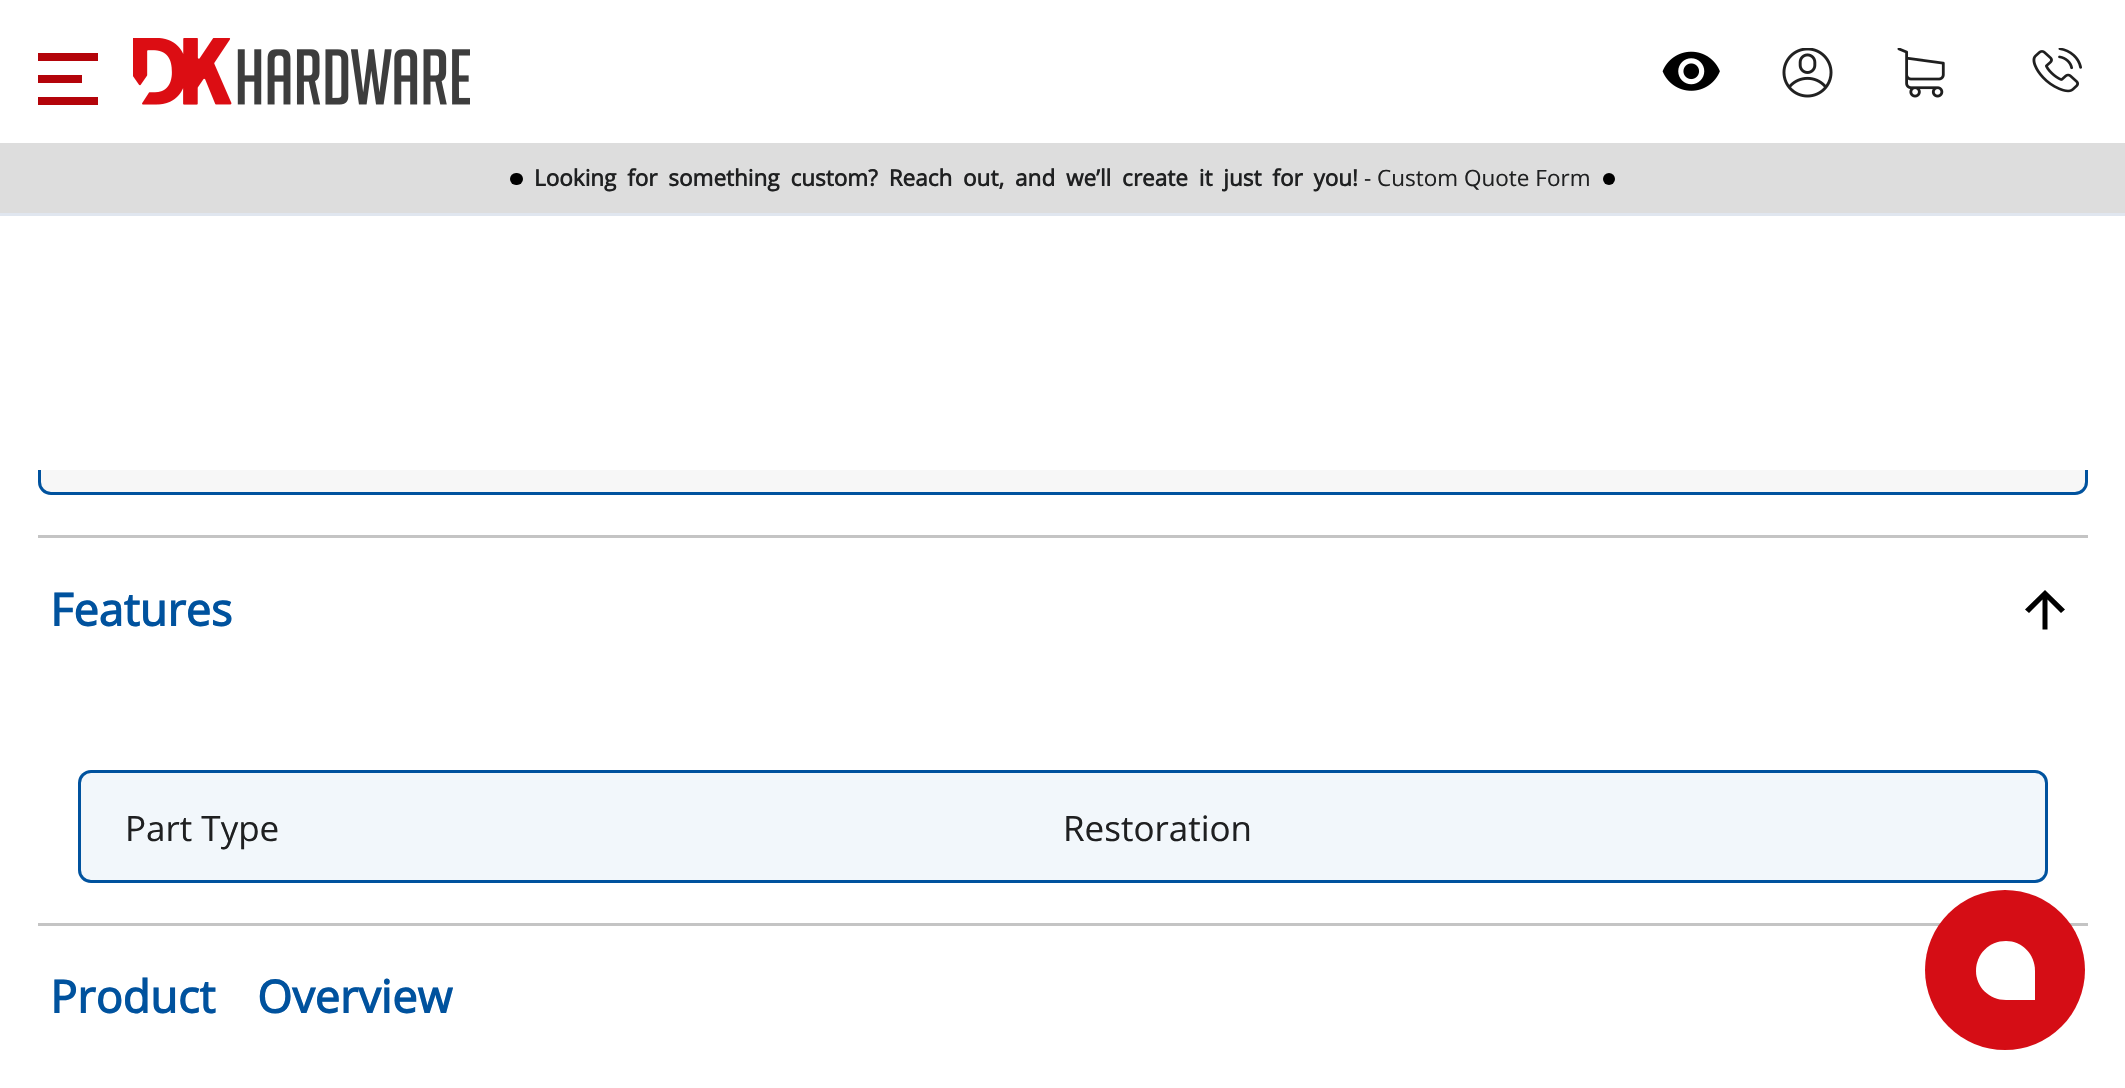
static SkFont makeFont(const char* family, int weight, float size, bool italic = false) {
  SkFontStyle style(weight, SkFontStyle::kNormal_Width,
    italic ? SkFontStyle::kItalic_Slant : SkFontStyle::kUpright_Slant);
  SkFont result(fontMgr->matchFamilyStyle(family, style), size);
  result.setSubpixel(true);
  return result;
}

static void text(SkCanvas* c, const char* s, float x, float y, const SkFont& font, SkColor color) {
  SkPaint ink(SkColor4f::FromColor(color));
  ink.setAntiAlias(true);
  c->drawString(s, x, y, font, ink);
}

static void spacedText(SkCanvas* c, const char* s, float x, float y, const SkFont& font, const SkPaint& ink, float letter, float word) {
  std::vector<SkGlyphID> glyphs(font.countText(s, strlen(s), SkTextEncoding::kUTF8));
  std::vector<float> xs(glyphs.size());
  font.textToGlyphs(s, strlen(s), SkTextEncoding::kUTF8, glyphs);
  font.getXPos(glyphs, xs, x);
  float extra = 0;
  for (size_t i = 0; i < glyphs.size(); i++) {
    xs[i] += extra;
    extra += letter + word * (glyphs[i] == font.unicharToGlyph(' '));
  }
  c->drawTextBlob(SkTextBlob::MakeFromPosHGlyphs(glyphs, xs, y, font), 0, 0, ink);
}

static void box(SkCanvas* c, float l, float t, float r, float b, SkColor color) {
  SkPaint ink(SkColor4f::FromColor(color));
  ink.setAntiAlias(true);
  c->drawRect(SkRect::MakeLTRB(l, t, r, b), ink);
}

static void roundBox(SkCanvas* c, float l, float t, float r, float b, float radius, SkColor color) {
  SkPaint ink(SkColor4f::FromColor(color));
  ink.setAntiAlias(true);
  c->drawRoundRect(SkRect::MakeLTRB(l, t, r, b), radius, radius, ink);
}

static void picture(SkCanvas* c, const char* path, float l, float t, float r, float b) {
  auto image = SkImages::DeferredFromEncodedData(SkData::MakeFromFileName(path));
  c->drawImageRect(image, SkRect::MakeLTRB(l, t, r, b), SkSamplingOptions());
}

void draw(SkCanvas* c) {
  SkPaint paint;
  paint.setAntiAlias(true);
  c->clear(0xffffffff);
  paint.setColor(0xfff7f7f7);
  c->drawRoundRect(SkRect::MakeLTRB(39.5f, -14.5f, 2086.5f, 493.5f), 11.5f, 11.5f, paint);
  paint.setStyle(SkPaint::kStroke_Style);
  paint.setStrokeWidth(3);
  paint.setColor(0xff00529e);
  c->drawRoundRect(SkRect::MakeLTRB(39.5f, -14.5f, 2086.5f, 493.5f), 11.5f, 11.5f, paint);
  box(c, 38, 0, 2088, 470, 0xffffffff);
  box(c, 0, 213, 2125, 216, 0xffe0e6ef);
  box(c, 38, 53, 98, 61, 0xffb4040a);
  box(c, 38, 75, 82, 83, 0xffb4040a);
  box(c, 38, 97, 98, 105, 0xffb4040a);
  picture(c, "img_01.png", 133, 38, 470, 105);
  picture(c, "img_02.png", 1662, 51, 1720, 91);
  picture(c, "img_03.png", 1782, 48, 1833, 98);
  picture(c, "img_04.png", 1897, 48, 1945, 98);
  picture(c, "img_05.png", 2032, 48, 2082, 93);
  box(c, 0, 143, 2125, 213, 0xffdddddd);
  roundBox(c, 510, 173, 523, 185, 6, 0xff000000);
  SkFont face1 = makeFont("Open Sans", 700, 22.5f);
  paint.setStyle(SkPaint::kFill_Style);
  paint.setColor(0xff1f2021);
  spacedText(c, "Looking for something custom? Reach out, and we’ll create it just for you!", 534, 186, face1, paint, 0, 5);
  SkFont face2 = makeFont("Open Sans", 400, 22.5f);
  text(c, "- Custom Quote Form", 1364, 186, face2, 0xff1f2021);
  paint.setColor(0xff000000);
  c->drawCircle(1609, 179, 6, paint);
  box(c, 38, 535, 2088, 538, 0xffc4c4c4);
  SkFont face3 = makeFont("Open Sans", 700, 45);
  text(c, "Features", 50, 626, face3, 0xff00529e);
  c->drawPath(SkPathBuilder().moveTo(2047.5f, 629.5f).lineTo(2042.5f, 629.5f).lineTo(2042.5f, 599.5f).lineTo(2029, 613).lineTo(2025, 609.5f).lineTo(2045, 590).lineTo(2065, 609.5f).lineTo(2061, 613).lineTo(2047.5f, 599.5f).close().detach(), paint);
  paint.setStyle(SkPaint::kStroke_Style);
  paint.setColor(0xff00529e);
  c->drawRoundRect(SkRect::MakeLTRB(79.5f, 771.5f, 2046.5f, 881.5f), 11.5f, 11.5f, paint);
  box(c, 80, 773, 2045, 880, 0x0d0060ba);
  SkFont face4 = makeFont("Open Sans", 400, 35);
  text(c, "Part Type", 125, 841, face4, 0xff1f2021);
  text(c, "Restoration", 1063, 841, face4, 0xff1f2021);
  box(c, 38, 923, 2088, 926, 0xffc4c4c4);
  paint.setStyle(SkPaint::kFill_Style);
  spacedText(c, "Product Overview", 50, 1013, face3, paint, 0, 30);
  paint.setColor(0xffd50d15);
  c->drawCircle(2005, 970, 80, paint);
  paint.setColor(0xffffffff);
  c->drawPath(SkPathBuilder().moveTo(2035, 1000).lineTo(2006, 1000).cubicTo(1989, 1000, 1976, 987, 1976, 971).cubicTo(1976, 954, 1989, 941, 2006, 941).cubicTo(2022, 941, 2035, 954, 2035, 971).close().detach(), paint);
}
